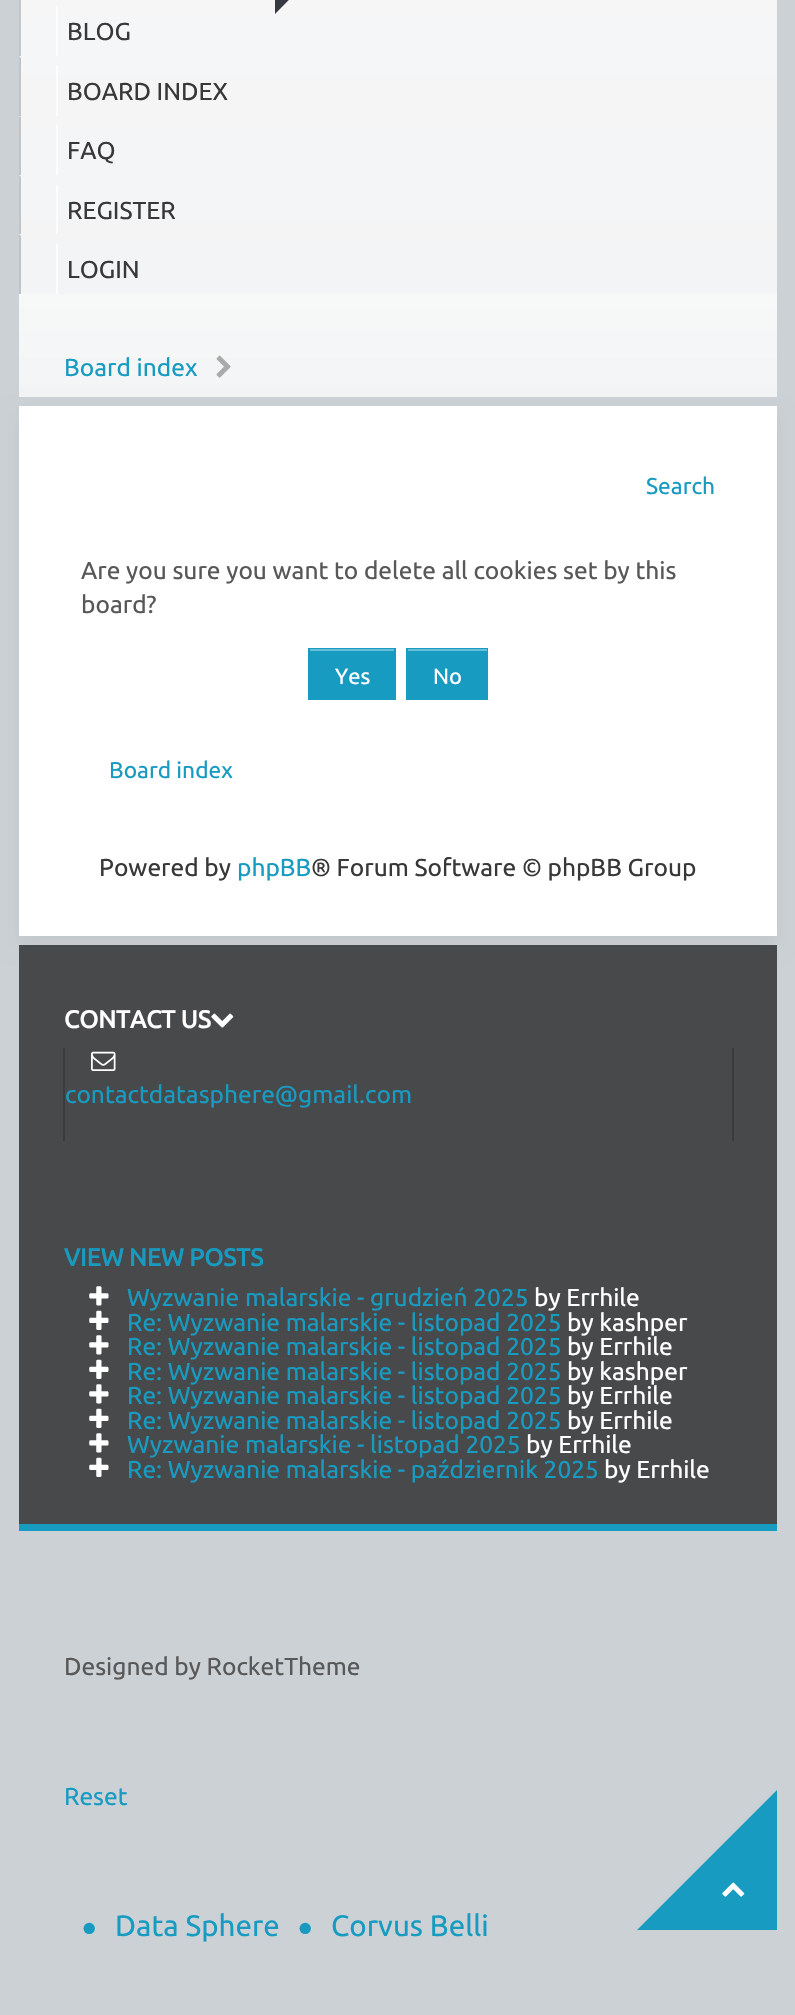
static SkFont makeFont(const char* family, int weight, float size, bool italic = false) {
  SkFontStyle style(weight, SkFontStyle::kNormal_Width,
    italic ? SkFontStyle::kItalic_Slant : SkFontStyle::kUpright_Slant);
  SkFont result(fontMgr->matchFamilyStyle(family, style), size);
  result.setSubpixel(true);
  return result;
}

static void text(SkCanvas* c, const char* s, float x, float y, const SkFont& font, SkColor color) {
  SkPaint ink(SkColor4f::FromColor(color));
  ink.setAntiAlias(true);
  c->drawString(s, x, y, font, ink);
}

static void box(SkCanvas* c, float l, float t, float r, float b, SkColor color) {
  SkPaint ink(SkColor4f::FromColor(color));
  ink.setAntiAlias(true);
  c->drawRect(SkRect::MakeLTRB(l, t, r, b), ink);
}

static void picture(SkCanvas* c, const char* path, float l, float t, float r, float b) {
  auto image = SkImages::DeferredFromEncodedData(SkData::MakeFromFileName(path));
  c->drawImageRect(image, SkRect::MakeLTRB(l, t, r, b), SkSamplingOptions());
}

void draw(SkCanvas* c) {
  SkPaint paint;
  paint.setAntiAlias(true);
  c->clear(0xffccd1d5);
  {
    const SkColor colors[] = {0xfff7f7f8, 0xfff3f4f5};
    const float stops[] = {0, 1};
    const SkPoint ends[] = {{398, -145}, {398, 294}};
    paint.setShader(SkGradientShader::MakeLinear(ends, colors, stops, 2, SkTileMode::kClamp));
    paint.setAlpha(255);
  }
  c->drawRect(SkRect::MakeLTRB(19, 0, 777, 294), paint);
  paint.setShader(nullptr);
  paint.setColor(0xff363942);
  c->drawPath(SkPathBuilder().moveTo(275, -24.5f).lineTo(313, -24.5f).lineTo(275, 14).close().detach(), paint);
  paint.setColor(0xffc4c5c6);
  c->drawPath(SkPathBuilder().moveTo(19, 56).lineTo(19, -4).lineTo(21, -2).lineTo(21, 56).close().detach(), paint);
  paint.setColor(0xfffdfdfd);
  c->drawPath(SkPathBuilder().moveTo(56, 56).lineTo(56, 5).lineTo(58, 7).lineTo(58, 56).close().detach(), paint);
  SkFont face1 = makeFont("Ubuntu", 400, 24.5f);
  text(c, "BLOG", 67, 40, face1, 0xff383838);
  paint.setColor(0xffc4c4c5);
  c->drawPath(SkPathBuilder().moveTo(19, 116).lineTo(19, 56).lineTo(21, 58).lineTo(21, 116).close().detach(), paint);
  paint.setColor(0xfffdfdfd);
  c->drawPath(SkPathBuilder().moveTo(56, 116).lineTo(56, 65).lineTo(58, 66).lineTo(58, 116).close().detach(), paint);
  text(c, "BOARD INDEX", 67, 100, face1, 0xff383838);
  paint.setColor(0xffc3c4c5);
  c->drawPath(SkPathBuilder().moveTo(19, 175).lineTo(19, 116).lineTo(21, 117).lineTo(21, 175).close().detach(), paint);
  paint.setColor(0xfffdfdfd);
  c->drawPath(SkPathBuilder().moveTo(56, 175).lineTo(56, 124).lineTo(58, 126).lineTo(58, 175).close().detach(), paint);
  text(c, "FAQ", 67, 159, face1, 0xff383838);
  paint.setColor(0xffc3c4c5);
  c->drawPath(SkPathBuilder().moveTo(19, 234).lineTo(19, 175).lineTo(21, 177).lineTo(21, 234).close().detach(), paint);
  paint.setColor(0xfffdfdfd);
  c->drawPath(SkPathBuilder().moveTo(56, 234).lineTo(56, 184).lineTo(58, 186).lineTo(58, 234).close().detach(), paint);
  text(c, "REGISTER", 67, 219, face1, 0xff383838);
  paint.setColor(0xffc2c3c4);
  c->drawPath(SkPathBuilder().moveTo(19, 294).lineTo(19, 234).lineTo(21, 236).lineTo(21, 294).close().detach(), paint);
  paint.setColor(0xfffdfdfd);
  c->drawPath(SkPathBuilder().moveTo(56, 294).lineTo(56, 243).lineTo(58, 245).lineTo(58, 294).close().detach(), paint);
  text(c, "LOGIN", 67, 278, face1, 0xff383838);
  {
    const SkColor colors[] = {0xfff7f8f8, 0xfff3f4f5};
    const float stops[] = {0, 1};
    const SkPoint ends[] = {{398, 294}, {398, 397}};
    paint.setShader(SkGradientShader::MakeLinear(ends, colors, stops, 2, SkTileMode::kClamp));
    paint.setAlpha(255);
  }
  c->drawRect(SkRect::MakeLTRB(19, 294, 777, 397), paint);
  text(c, "Board index", 64, 376, face1, 0xff189bc1);
  picture(c, "img_01.png", 216, 355, 231, 378);
  paint.setShader(nullptr);
  paint.setColor(0x0d000000);
  paint.setMaskFilter(SkMaskFilter::MakeBlur(kNormal_SkBlurStyle, 9));
  c->drawRect(SkRect::MakeLTRB(19, 415, 777, 945), paint);
  paint.setMaskFilter(nullptr);
  box(c, 19, 406, 777, 936, 0xffffffff);
  SkFont face2 = makeFont("Ubuntu", 400, 22.75f);
  text(c, "Search", 646, 494, face2, 0xff189bc1);
  text(c, "Are you sure you want to delete all cookies set by this", 81, 579, face1, 0xff585858);
  text(c, "board?", 81, 613, face1, 0xff585858);
  box(c, 308, 648, 396, 700, 0xff189bc1);
  box(c, 310, 649, 394, 651, 0xff69bed7);
  SkFont face3 = makeFont("Ubuntu", 400, 22);
  text(c, "Yes", 335, 684, face3, 0xffffffff);
  box(c, 406, 648, 488, 700, 0xff189bc1);
  box(c, 408, 649, 487, 651, 0xff69bed7);
  text(c, "No", 433, 684, face3, 0xffffffff);
  text(c, "Board index", 109, 778, face2, 0xff189bc1);
  text(c, "Powered by", 99, 876, face1, 0xff383838);
  text(c, "phpBB", 237, 876, face1, 0xff189bc1);
  text(c, "® Forum Software © phpBB Group", 311, 876, face1, 0xff383838);
  box(c, 19, 945, 777, 1524, 0x1f000000);
  box(c, 19, 945, 777, 1524, 0x99000000);
  box(c, 19, 1524, 777, 1531, 0xff189bc1);
  SkFont face4 = makeFont("Ubuntu", 700, 24.5f);
  text(c, "CONTACT US", 64, 1028, face4, 0xffffffff);
  picture(c, "img_02.png", 211, 1013, 234, 1028);
  box(c, 732, 1048, 734, 1141, 0xff393b3c);
  box(c, 63, 1048, 65, 1141, 0xff393b3c);
  picture(c, "img_03.png", 91, 1051, 116, 1071);
  text(c, "contactdatasphere@gmail.com", 65, 1103, face1, 0xff189bc1);
  text(c, "VIEW NEW POSTS", 64, 1266, face4, 0xff189bc1);
  picture(c, "img_04.png", 89, 1286, 109, 1306);
  text(c, "Wyzwanie malarskie - grudzień 2025", 127, 1306, face1, 0xff189bc1);
  text(c, "by Errhile", 534, 1306, face1, 0xffffffff);
  picture(c, "img_05.png", 89, 1310, 109, 1330);
  text(c, "Re: Wyzwanie malarskie - listopad 2025", 127, 1331, face1, 0xff189bc1);
  text(c, "by kashper", 567, 1331, face1, 0xffffffff);
  picture(c, "img_04.png", 89, 1335, 109, 1355);
  text(c, "Re: Wyzwanie malarskie - listopad 2025", 127, 1355, face1, 0xff189bc1);
  text(c, "by Errhile", 567, 1355, face1, 0xffffffff);
  picture(c, "img_05.png", 89, 1359, 109, 1379);
  text(c, "Re: Wyzwanie malarskie - listopad 2025", 127, 1380, face1, 0xff189bc1);
  text(c, "by kashper", 567, 1380, face1, 0xffffffff);
  picture(c, "img_04.png", 89, 1384, 109, 1404);
  text(c, "Re: Wyzwanie malarskie - listopad 2025", 127, 1404, face1, 0xff189bc1);
  text(c, "by Errhile", 567, 1404, face1, 0xffffffff);
  picture(c, "img_05.png", 89, 1408, 109, 1428);
  text(c, "Re: Wyzwanie malarskie - listopad 2025", 127, 1429, face1, 0xff189bc1);
  text(c, "by Errhile", 567, 1429, face1, 0xffffffff);
  picture(c, "img_04.png", 89, 1433, 109, 1453);
  text(c, "Wyzwanie malarskie - listopad 2025", 127, 1453, face1, 0xff189bc1);
  text(c, "by Errhile", 526, 1453, face1, 0xffffffff);
  picture(c, "img_05.png", 89, 1457, 109, 1477);
  text(c, "Re: Wyzwanie malarskie - październik 2025", 127, 1478, face1, 0xff189bc1);
  text(c, "by Errhile", 604, 1478, face1, 0xffffffff);
  text(c, "Designed by RocketTheme", 64, 1675, face1, 0xff585858);
  text(c, "Reset", 64, 1805, face1, 0xff189bc1);
  paint.setColor(0xff189bc1);
  c->drawPath(SkPathBuilder().moveTo(777, 1930).lineTo(637, 1930).lineTo(777, 1790).close().detach(), paint);
  picture(c, "img_06.png", 722, 1882, 745, 1897);
  SkFont face5 = makeFont("Liberation Serif", 400, 47);
  text(c, "•", 81, 1944, face5, 0xff189bc1);
  SkFont face6 = makeFont("Ubuntu", 400, 29.5f);
  text(c, "Data Sphere", 115, 1936, face6, 0xff189bc1);
  text(c, "•", 297, 1944, face5, 0xff189bc1);
  text(c, "Corvus Belli", 331, 1936, face6, 0xff189bc1);
}
